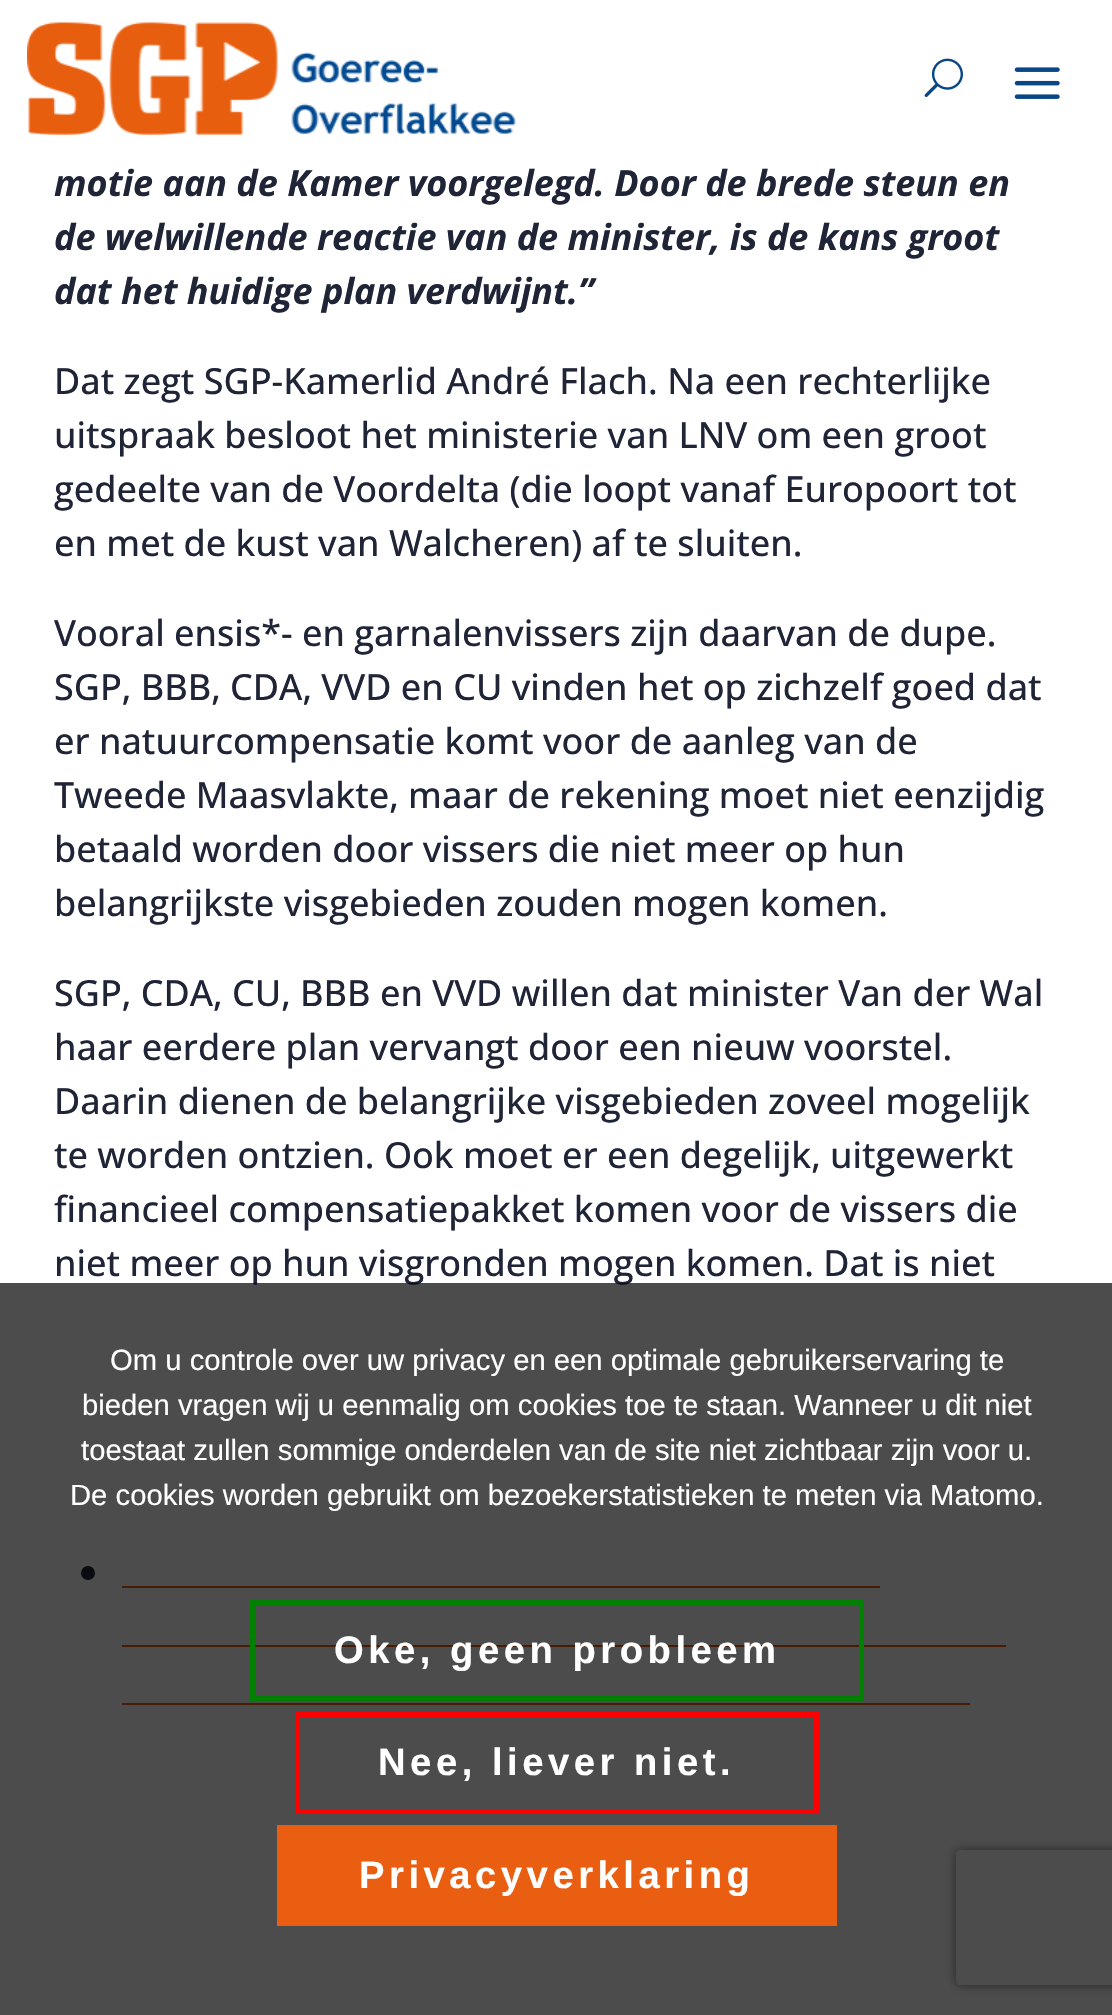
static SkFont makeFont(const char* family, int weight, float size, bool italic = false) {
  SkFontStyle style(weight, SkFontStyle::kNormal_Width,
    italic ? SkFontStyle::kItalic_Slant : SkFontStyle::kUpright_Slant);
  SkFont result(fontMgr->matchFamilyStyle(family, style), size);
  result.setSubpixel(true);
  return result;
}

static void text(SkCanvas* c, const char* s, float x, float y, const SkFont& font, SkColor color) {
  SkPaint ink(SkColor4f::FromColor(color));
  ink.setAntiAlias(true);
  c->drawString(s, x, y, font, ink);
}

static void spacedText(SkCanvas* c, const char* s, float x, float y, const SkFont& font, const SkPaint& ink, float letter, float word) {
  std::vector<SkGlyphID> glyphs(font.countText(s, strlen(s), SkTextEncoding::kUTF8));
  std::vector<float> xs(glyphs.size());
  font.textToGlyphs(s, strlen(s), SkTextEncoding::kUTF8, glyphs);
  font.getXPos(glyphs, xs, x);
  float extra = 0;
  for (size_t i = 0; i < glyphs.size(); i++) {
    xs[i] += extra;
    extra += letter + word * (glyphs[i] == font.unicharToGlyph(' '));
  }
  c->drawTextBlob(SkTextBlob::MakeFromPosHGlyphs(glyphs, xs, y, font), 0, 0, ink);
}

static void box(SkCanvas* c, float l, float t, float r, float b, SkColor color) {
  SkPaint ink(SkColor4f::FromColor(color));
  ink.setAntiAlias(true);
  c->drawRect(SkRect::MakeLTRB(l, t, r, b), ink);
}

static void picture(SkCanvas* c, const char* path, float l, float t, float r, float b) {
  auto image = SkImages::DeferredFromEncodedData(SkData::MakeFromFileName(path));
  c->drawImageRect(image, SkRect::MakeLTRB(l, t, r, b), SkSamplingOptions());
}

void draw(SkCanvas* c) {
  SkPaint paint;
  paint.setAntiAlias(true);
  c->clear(0xffffffff);
  picture(c, "img_01.png", 27, 22, 516, 135);
  picture(c, "img_02.png", 924, 58, 963, 97);
  picture(c, "img_03.png", 1014, 67, 1060, 99);
  SkFont face1 = makeFont("Open Sans", 700, 36, true);
  text(c, "motie aan de Kamer voorgelegd. Door de brede steun en", 54, 196, face1, 0xff1f2436);
  text(c, "de welwillende reactie van de minister, is de kans groot", 54, 250, face1, 0xff1f2436);
  text(c, "dat het huidige plan verdwijnt.”", 54, 304, face1, 0xff1f2436);
  SkFont face2 = makeFont("Open Sans", 500, 36);
  text(c, "Dat zegt SGP-Kamerlid André Flach. Na een rechterlijke", 54, 394, face2, 0xff1f2436);
  text(c, "uitspraak besloot het ministerie van LNV om een groot", 54, 448, face2, 0xff1f2436);
  text(c, "gedeelte van de Voordelta (die loopt vanaf Europoort tot", 54, 502, face2, 0xff1f2436);
  text(c, "en met de kust van Walcheren) af te sluiten.", 54, 556, face2, 0xff1f2436);
  text(c, "Vooral ensis*- en garnalenvissers zijn daarvan de dupe.", 54, 646, face2, 0xff1f2436);
  text(c, "SGP, BBB, CDA, VVD en CU vinden het op zichzelf goed dat", 54, 700, face2, 0xff1f2436);
  text(c, "er natuurcompensatie komt voor de aanleg van de", 54, 754, face2, 0xff1f2436);
  text(c, "Tweede Maasvlakte, maar de rekening moet niet eenzijdig", 54, 808, face2, 0xff1f2436);
  text(c, "betaald worden door vissers die niet meer op hun", 54, 862, face2, 0xff1f2436);
  text(c, "belangrijkste visgebieden zouden mogen komen.", 54, 916, face2, 0xff1f2436);
  text(c, "SGP, CDA, CU, BBB en VVD willen dat minister Van der Wal", 54, 1006, face2, 0xff1f2436);
  text(c, "haar eerdere plan vervangt door een nieuw voorstel.", 54, 1060, face2, 0xff1f2436);
  text(c, "Daarin dienen de belangrijke visgebieden zoveel mogelijk", 54, 1114, face2, 0xff1f2436);
  text(c, "te worden ontzien. Ook moet er een degelijk, uitgewerkt", 54, 1168, face2, 0xff1f2436);
  text(c, "financieel compensatiepakket komen voor de vissers die", 54, 1222, face2, 0xff1f2436);
  text(c, "niet meer op hun visgronden mogen komen. Dat is niet", 54, 1276, face2, 0xff1f2436);
  paint.setColor(0xff1f2436);
  c->drawCircle(88, 1573, 7, paint);
  box(c, 122, 1586, 880, 1588, 0xffe95e10);
  box(c, 122, 1645, 1006, 1647, 0xffe95e10);
  box(c, 122, 1703, 970, 1705, 0xffe95e10);
  c->save();
  c->clipPath(SkPathBuilder(SkPathFillType::kEvenOdd).moveTo(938, 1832).lineTo(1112, 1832).lineTo(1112, 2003).lineTo(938, 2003).close().moveTo(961, 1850).lineTo(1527, 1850).cubicTo(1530, 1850, 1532, 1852, 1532, 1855).lineTo(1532, 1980).cubicTo(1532, 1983, 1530, 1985, 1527, 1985).lineTo(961, 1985).cubicTo(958, 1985, 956, 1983, 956, 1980).lineTo(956, 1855).cubicTo(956, 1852, 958, 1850, 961, 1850).close().detach(), true);
  paint.setColor(0xff808080);
  paint.setMaskFilter(SkMaskFilter::MakeBlur(kNormal_SkBlurStyle, 5.5f));
  c->drawRoundRect(SkRect::MakeLTRB(956, 1850, 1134, 1985), 5, 5, paint);
  paint.setMaskFilter(nullptr);
  c->restore();
  box(c, 0, 1283, 1112, 2015, 0xb3000000);
  SkFont face3 = makeFont("Liberation Sans", 400, 29.25f);
  text(c, "Om u controle over uw privacy en een optimale gebruikerservaring te", 110, 1370, face3, 0xffffffff);
  text(c, "bieden vragen wij u eenmalig om cookies toe te staan. Wanneer u dit niet", 82, 1415, face3, 0xffffffff);
  text(c, "toestaat zullen sommige onderdelen van de site niet zichtbaar zijn voor u.", 81, 1460, face3, 0xffffffff);
  text(c, "De cookies worden gebruikt om bezoekerstatistieken te meten via Matomo.", 70, 1505, face3, 0xffffffff);
  paint.setStyle(SkPaint::kStroke_Style);
  paint.setStrokeWidth(5);
  paint.setColor(0xff008000);
  c->drawRect(SkRect::MakeLTRB(252.5f, 1602.5f, 861.5f, 1698.5f), paint);
  SkFont face4 = makeFont("Liberation Sans", 700, 38.25f);
  paint.setStyle(SkPaint::kFill_Style);
  paint.setColor(0xffffffff);
  spacedText(c, "Oke, geen probleem", 334, 1663, face4, paint, 4.5f, 0);
  paint.setStyle(SkPaint::kStroke_Style);
  paint.setColor(0xffff0000);
  c->drawRect(SkRect::MakeLTRB(297.5f, 1714.5f, 816.5f, 1811.5f), paint);
  paint.setStyle(SkPaint::kFill_Style);
  paint.setColor(0xffffffff);
  spacedText(c, "Nee, liever niet.", 378, 1775, face4, paint, 4.5f, 0);
  box(c, 277, 1825, 837, 1926, 0xffe95e10);
  spacedText(c, "Privacyverklaring", 359, 1888, face4, paint, 4.5f, 0);
}
